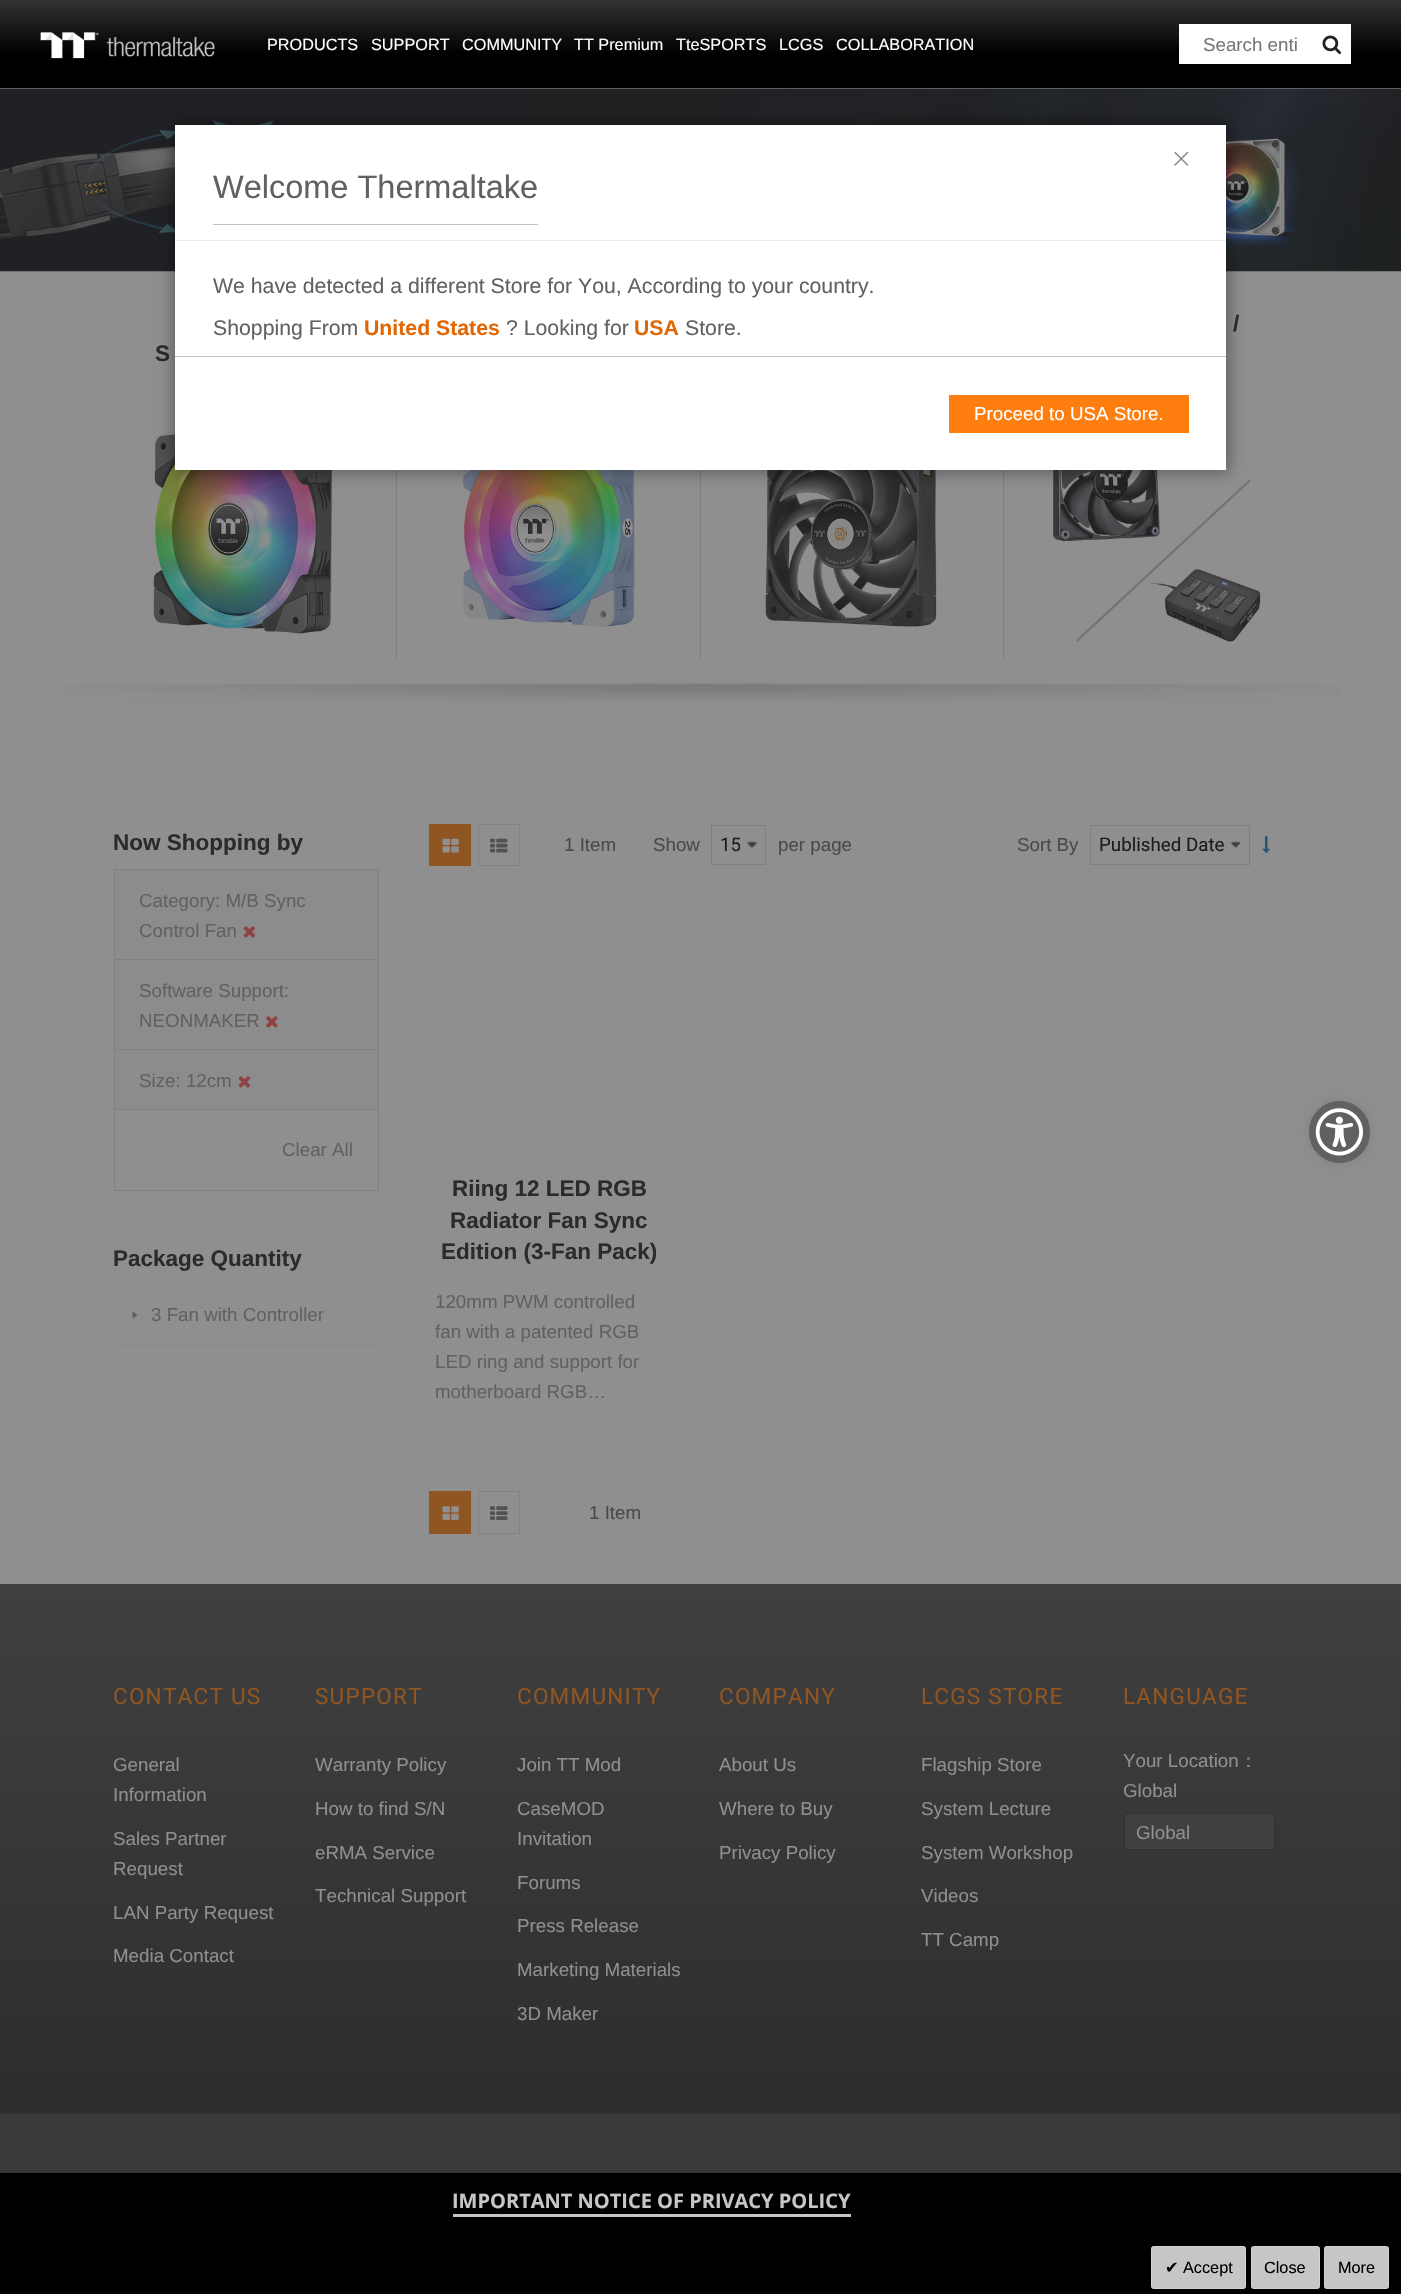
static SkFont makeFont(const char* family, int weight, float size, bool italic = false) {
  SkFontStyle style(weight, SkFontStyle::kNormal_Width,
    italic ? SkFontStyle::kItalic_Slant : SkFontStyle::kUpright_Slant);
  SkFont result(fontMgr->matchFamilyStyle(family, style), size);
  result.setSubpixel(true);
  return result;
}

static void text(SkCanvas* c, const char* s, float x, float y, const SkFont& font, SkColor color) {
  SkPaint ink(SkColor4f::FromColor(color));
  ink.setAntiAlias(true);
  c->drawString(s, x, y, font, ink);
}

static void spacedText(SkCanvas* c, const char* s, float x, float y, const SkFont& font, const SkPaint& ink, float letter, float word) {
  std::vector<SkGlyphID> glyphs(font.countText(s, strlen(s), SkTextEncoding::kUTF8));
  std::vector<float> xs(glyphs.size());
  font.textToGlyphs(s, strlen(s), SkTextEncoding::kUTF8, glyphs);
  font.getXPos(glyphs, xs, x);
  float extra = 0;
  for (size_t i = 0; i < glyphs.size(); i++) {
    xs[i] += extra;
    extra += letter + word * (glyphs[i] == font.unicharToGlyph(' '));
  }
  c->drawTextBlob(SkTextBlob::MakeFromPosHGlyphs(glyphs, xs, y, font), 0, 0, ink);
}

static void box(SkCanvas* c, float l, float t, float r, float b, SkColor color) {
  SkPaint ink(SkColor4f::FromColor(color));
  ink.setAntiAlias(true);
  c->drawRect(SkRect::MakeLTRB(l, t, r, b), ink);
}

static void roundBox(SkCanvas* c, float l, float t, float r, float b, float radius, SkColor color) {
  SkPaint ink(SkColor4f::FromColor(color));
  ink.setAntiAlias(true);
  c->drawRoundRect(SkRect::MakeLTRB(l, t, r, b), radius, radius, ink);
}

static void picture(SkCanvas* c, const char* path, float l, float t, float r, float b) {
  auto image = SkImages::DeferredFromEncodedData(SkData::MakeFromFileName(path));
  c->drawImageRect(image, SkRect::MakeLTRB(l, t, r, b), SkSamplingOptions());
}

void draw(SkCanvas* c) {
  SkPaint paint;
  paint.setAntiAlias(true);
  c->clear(0xff8f8f8f);
  {
    const SkColor colors[] = {0xff333333, 0xff000000};
    const float stops[] = {0, 0.61f};
    const SkPoint ends[] = {{701, 0}, {701, 88}};
    paint.setShader(SkGradientShader::MakeLinear(ends, colors, stops, 2, SkTileMode::kClamp));
    paint.setAlpha(255);
  }
  c->drawRect(SkRect::MakeLTRB(0, 0, 1401, 88), paint);
  box(c, 0, 88, 1401, 89, 0xff5f5f5f);
  picture(c, "img_01.png", 40, 32, 215, 59);
  SkFont face1 = makeFont("Liberation Sans", 400, 16.25f);
  text(c, "PRODUCTS", 267, 50, face1, 0xffffffff);
  text(c, "SUPPORT", 371, 50, face1, 0xffffffff);
  text(c, "COMMUNITY", 462, 50, face1, 0xffffffff);
  text(c, "TT Premium", 574, 50, face1, 0xffffffff);
  text(c, "TteSPORTS", 676, 50, face1, 0xffffffff);
  text(c, "LCGS", 779, 50, face1, 0xffffffff);
  text(c, "COLLABORATION", 836, 50, face1, 0xffffffff);
  box(c, 1179, 24, 1351, 64, 0xffffffff);
  SkFont face2 = makeFont("Liberation Sans", 400, 18.75f);
  text(c, "Search enti", 1203, 51, face2, 0xff777777);
  picture(c, "img_02.png", 1322, 35, 1342, 55);
  picture(c, "img_03.png", 0, 89, 1401, 272);
  SkFont face3 = makeFont("Liberation Sans", 700, 22.5f);
  text(c, "/", 1233, 331, face3, 0xff2b2b2b);
  picture(c, "img_04.png", 1052, 423, 1261, 642);
  box(c, 396, 470, 397, 659, 0xff808080);
  text(c, "S", 155, 361, face3, 0xff2b2b2b);
  picture(c, "img_05.png", 153, 426, 332, 634);
  box(c, 700, 470, 701, 659, 0xff808080);
  picture(c, "img_06.png", 463, 470, 635, 627);
  box(c, 1003, 470, 1004, 659, 0xff808080);
  picture(c, "img_07.png", 765, 470, 937, 627);
  picture(c, "img_08.png", 64, 683, 1341, 703);
  text(c, "Now Shopping by", 113, 850, face3, 0xff2b2b2b);
  box(c, 114, 869, 379, 870, 0xff7f7f7f);
  box(c, 378, 869, 379, 1109, 0xff7f7f7f);
  box(c, 114, 869, 115, 1109, 0xff7f7f7f);
  box(c, 115, 870, 378, 959, 0xff8c8c8c);
  box(c, 115, 959, 378, 960, 0xff7f7f7f);
  text(c, "Category: M/B Sync", 139, 907, face2, 0xff616161);
  text(c, "Control Fan", 139, 937, face2, 0xff616161);
  picture(c, "img_09.png", 243, 926, 256, 938);
  box(c, 115, 960, 378, 1049, 0xff8c8c8c);
  box(c, 115, 1049, 378, 1050, 0xff7f7f7f);
  text(c, "Software Support:", 139, 997, face2, 0xff616161);
  text(c, "NEONMAKER", 139, 1027, face2, 0xff616161);
  picture(c, "img_10.png", 266, 1016, 278, 1028);
  box(c, 115, 1050, 378, 1109, 0xff8c8c8c);
  text(c, "Size: 12cm", 139, 1087, face2, 0xff616161);
  picture(c, "img_09.png", 238, 1076, 251, 1088);
  paint.setStyle(SkPaint::kStroke_Style);
  paint.setStrokeWidth(1);
  paint.setShader(nullptr);
  paint.setColor(0xff7f7f7f);
  c->drawRect(SkRect::MakeLTRB(114.5f, 1109.5f, 378.5f, 1190.5f), paint);
  text(c, "Clear All", 282, 1156, face2, 0xff616161);
  text(c, "Package Quantity", 113, 1266, face3, 0xff2b2b2b);
  box(c, 114, 1345, 379, 1346, 0xff888888);
  picture(c, "img_11.png", 132, 1311, 138, 1319);
  text(c, "3 Fan with Controller", 151, 1321, face2, 0xff616161);
  box(c, 429, 824, 471, 866, 0xff8f5523);
  picture(c, "img_12.png", 442, 838, 459, 853);
  paint.setColor(0xff838383);
  c->drawRect(SkRect::MakeLTRB(478.5f, 824.5f, 519.5f, 865.5f), paint);
  picture(c, "img_13.png", 490, 838, 508, 853);
  text(c, "1 Item", 564, 851, face2, 0xff4a4a4a);
  text(c, "Show", 653, 851, face2, 0xff4a4a4a);
  picture(c, "img_14.png", 747, 841, 758, 848);
  paint.setColor(0xff7f7f7f);
  c->drawRect(SkRect::MakeLTRB(711.5f, 825.5f, 765.5f, 864.5f), paint);
  c->save();
  c->clipRect(SkRect::MakeLTRB(719, 826, 740, 864));
  SkFont face4 = makeFont("Roboto", 400, 18.75f);
  text(c, "15", 720, 851, face4, 0xff1c1c1c);
  c->restore();
  text(c, "per page", 778, 851, face2, 0xff4a4a4a);
  text(c, "Sort By", 1017, 851, face2, 0xff4a4a4a);
  picture(c, "img_15.png", 1231, 841, 1241, 848);
  c->drawRect(SkRect::MakeLTRB(1090.5f, 825.5f, 1249.5f, 864.5f), paint);
  text(c, "Published Date", 1099, 851, face4, 0xff1c1c1c);
  picture(c, "img_16.png", 1262, 836, 1270, 854);
  text(c, "Riing 12 LED RGB", 452, 1196, face3, 0xff2b2b2b);
  text(c, "Radiator Fan Sync", 450, 1228, face3, 0xff2b2b2b);
  text(c, "Edition (3-Fan Pack)", 441, 1259, face3, 0xff2b2b2b);
  text(c, "120mm PWM controlled", 435, 1308, face2, 0xff616161);
  text(c, "fan with a patented RGB", 435, 1338, face2, 0xff616161);
  text(c, "LED ring and support for", 435, 1368, face2, 0xff616161);
  text(c, "motherboard RGB…", 435, 1398, face2, 0xff616161);
  box(c, 429, 1491, 471, 1534, 0xff8f5523);
  picture(c, "img_17.png", 442, 1506, 459, 1520);
  paint.setColor(0xff838383);
  c->drawRect(SkRect::MakeLTRB(478.5f, 1491.5f, 519.5f, 1533.5f), paint);
  picture(c, "img_18.png", 490, 1506, 508, 1520);
  text(c, "1 Item", 589, 1519, face2, 0xff4a4a4a);
  paint.setStyle(SkPaint::kFill_Style);
  {
    const SkColor colors[] = {0xff404040, 0xff2d2d2d};
    const float stops[] = {0, 1};
    const SkPoint ends[] = {{701, 1584}, {701, 2114}};
    paint.setShader(SkGradientShader::MakeLinear(ends, colors, stops, 2, SkTileMode::kClamp));
    paint.setAlpha(255);
  }
  c->drawRect(SkRect::MakeLTRB(0, 1584, 1401, 2114), paint);
  SkFont face5 = makeFont("Roboto", 400, 22.5f);
  paint.setShader(nullptr);
  paint.setColor(0xff8f5523);
  spacedText(c, "CONTACT US", 113, 1704, face5, paint, 1.25f, 0);
  text(c, "General", 113, 1771, face2, 0xff8f8f8f);
  text(c, "Information", 113, 1801, face2, 0xff8f8f8f);
  text(c, "Sales Partner", 113, 1845, face2, 0xff8f8f8f);
  text(c, "Request", 113, 1875, face2, 0xff8f8f8f);
  text(c, "LAN Party Request", 113, 1919, face2, 0xff8f8f8f);
  text(c, "Media Contact", 113, 1962, face2, 0xff8f8f8f);
  spacedText(c, "SUPPORT", 315, 1704, face5, paint, 1.25f, 0);
  text(c, "Warranty Policy", 315, 1771, face2, 0xff8f8f8f);
  text(c, "How to find S/N", 315, 1815, face2, 0xff8f8f8f);
  text(c, "eRMA Service", 315, 1859, face2, 0xff8f8f8f);
  text(c, "Technical Support", 315, 1902, face2, 0xff8f8f8f);
  spacedText(c, "COMMUNITY", 517, 1704, face5, paint, 1.25f, 0);
  text(c, "Join TT Mod", 517, 1771, face2, 0xff8f8f8f);
  text(c, "CaseMOD", 517, 1815, face2, 0xff8f8f8f);
  text(c, "Invitation", 517, 1845, face2, 0xff8f8f8f);
  text(c, "Forums", 517, 1889, face2, 0xff8f8f8f);
  text(c, "Press Release", 517, 1932, face2, 0xff8f8f8f);
  text(c, "Marketing Materials", 517, 1976, face2, 0xff8f8f8f);
  text(c, "3D Maker", 517, 2020, face2, 0xff8f8f8f);
  spacedText(c, "COMPANY", 719, 1704, face5, paint, 1.25f, 0);
  text(c, "About Us", 719, 1771, face2, 0xff8f8f8f);
  text(c, "Where to Buy", 719, 1815, face2, 0xff8f8f8f);
  text(c, "Privacy Policy", 719, 1859, face2, 0xff8f8f8f);
  spacedText(c, "LCGS STORE", 921, 1704, face5, paint, 1.25f, 0);
  text(c, "Flagship Store", 921, 1771, face2, 0xff8f8f8f);
  text(c, "System Lecture", 921, 1815, face2, 0xff8f8f8f);
  text(c, "System Workshop", 921, 1859, face2, 0xff8f8f8f);
  text(c, "Videos", 921, 1902, face2, 0xff8f8f8f);
  text(c, "TT Camp", 921, 1946, face2, 0xff8f8f8f);
  spacedText(c, "LANGUAGE", 1123, 1704, face5, paint, 1.25f, 0);
  text(c, "Your Location", 1123, 1767, face2, 0xff8f8f8f);
  SkFont face6 = makeFont("WenQuanYi Zen Hei", 500, 18.75f);
  text(c, "：", 1239, 1767, face6, 0xff8f8f8f);
  text(c, "Global", 1123, 1797, face2, 0xff8f8f8f);
  paint.setColor(0xff404040);
  c->drawRect(SkRect::MakeLTRB(1124.5f, 1813.5f, 1274.5f, 1849.5f), paint);
  paint.setStyle(SkPaint::kStroke_Style);
  paint.setColor(0xff323232);
  c->drawRect(SkRect::MakeLTRB(1124.5f, 1813.5f, 1274.5f, 1849.5f), paint);
  text(c, "Global", 1136, 1839, face2, 0xff8f8f8f);
  picture(c, "img_19.png", 0, 2113, 1401, 2173);
  paint.setStyle(SkPaint::kFill_Style);
  paint.setColor(0x78000000);
  paint.setMaskFilter(SkMaskFilter::MakeBlur(kNormal_SkBlurStyle, 3));
  c->drawRect(SkRect::MakeLTRB(0, 2175, 1401, 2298), paint);
  paint.setMaskFilter(nullptr);
  box(c, 0, 2173, 1401, 2294, 0xff000000);
  SkFont face7 = makeFont("Open Sans", 700, 20);
  text(c, "IMPORTANT NOTICE OF PRIVACY POLICY", 452, 2208, face7, 0xffc6c6c6);
  box(c, 453, 2214, 851, 2217, 0xffc6c6c6);
  paint.setColor(0xffc6c6c6);
  c->drawRoundRect(SkRect::MakeLTRB(1151.5f, 2246.5f, 1245.5f, 2288.5f), 2, 2, paint);
  paint.setStyle(SkPaint::kStroke_Style);
  paint.setColor(0xffd4d4d4);
  c->drawRoundRect(SkRect::MakeLTRB(1151.5f, 2246.5f, 1245.5f, 2288.5f), 2, 2, paint);
  SkFont face8 = makeFont("DejaVu Sans", 400, 16.25f);
  text(c, "✔", 1165, 2273, face8, 0xff000000);
  text(c, "Accept", 1183, 2273, face1, 0xff000000);
  paint.setStyle(SkPaint::kFill_Style);
  paint.setColor(0xffc6c6c6);
  c->drawRoundRect(SkRect::MakeLTRB(1251.5f, 2246.5f, 1319.5f, 2288.5f), 2, 2, paint);
  paint.setStyle(SkPaint::kStroke_Style);
  paint.setColor(0xffd4d4d4);
  c->drawRoundRect(SkRect::MakeLTRB(1251.5f, 2246.5f, 1319.5f, 2288.5f), 2, 2, paint);
  text(c, "Close", 1264, 2273, face1, 0xff000000);
  paint.setStyle(SkPaint::kFill_Style);
  paint.setColor(0xffc6c6c6);
  c->drawRoundRect(SkRect::MakeLTRB(1324.5f, 2246.5f, 1388.5f, 2288.5f), 2, 2, paint);
  paint.setStyle(SkPaint::kStroke_Style);
  paint.setColor(0xffd4d4d4);
  c->drawRoundRect(SkRect::MakeLTRB(1324.5f, 2246.5f, 1388.5f, 2288.5f), 2, 2, paint);
  text(c, "More", 1338, 2273, face1, 0xff000000);
  paint.setStyle(SkPaint::kFill_Style);
  paint.setColor(0x59000000);
  paint.setMaskFilter(SkMaskFilter::MakeBlur(kNormal_SkBlurStyle, 7.5f));
  c->drawRect(SkRect::MakeLTRB(173, 123, 1229, 473), paint);
  paint.setMaskFilter(nullptr);
  box(c, 175, 125, 1226, 470, 0xffffffff);
  box(c, 175, 240, 1226, 241, 0xffe9ecef);
  picture(c, "img_20.png", 1174, 151, 1189, 166);
  box(c, 213, 224, 538, 225, 0xffc1c1c1);
  SkFont face9 = makeFont("Liberation Sans", 400, 32.5f);
  text(c, "Welcome Thermaltake", 213, 198, face9, 0xff616161);
  SkFont face10 = makeFont("Liberation Sans", 400, 21.25f);
  text(c, "We have detected a different Store for You, According to your country.", 213, 293, face10, 0xff616161);
  text(c, "Shopping From", 213, 335, face10, 0xff616161);
  SkFont face11 = makeFont("Liberation Sans", 700, 21.25f);
  text(c, "United States", 364, 335, face11, 0xffe26703);
  text(c, "? Looking for", 506, 335, face10, 0xff616161);
  text(c, "USA", 634, 335, face11, 0xffe26703);
  text(c, "Store.", 685, 335, face10, 0xff616161);
  box(c, 175, 356, 1226, 357, 0xffc1c1c1);
  box(c, 949, 395, 1189, 433, 0xffff7e10);
  text(c, "Proceed to USA Store.", 974, 420, face2, 0xffffffff);
  paint.setColor(0x1a000000);
  paint.setMaskFilter(SkMaskFilter::MakeBlur(kNormal_SkBlurStyle, 6));
  c->drawRoundRect(SkRect::MakeLTRB(1309, 1101, 1370, 1163), 30.5f, 30.5f, paint);
  paint.setMaskFilter(nullptr);
  roundBox(c, 1309, 1101, 1370, 1163, 30.5f, 0xff616161);
  picture(c, "img_21.png", 1315, 1108, 1363, 1156);
}
